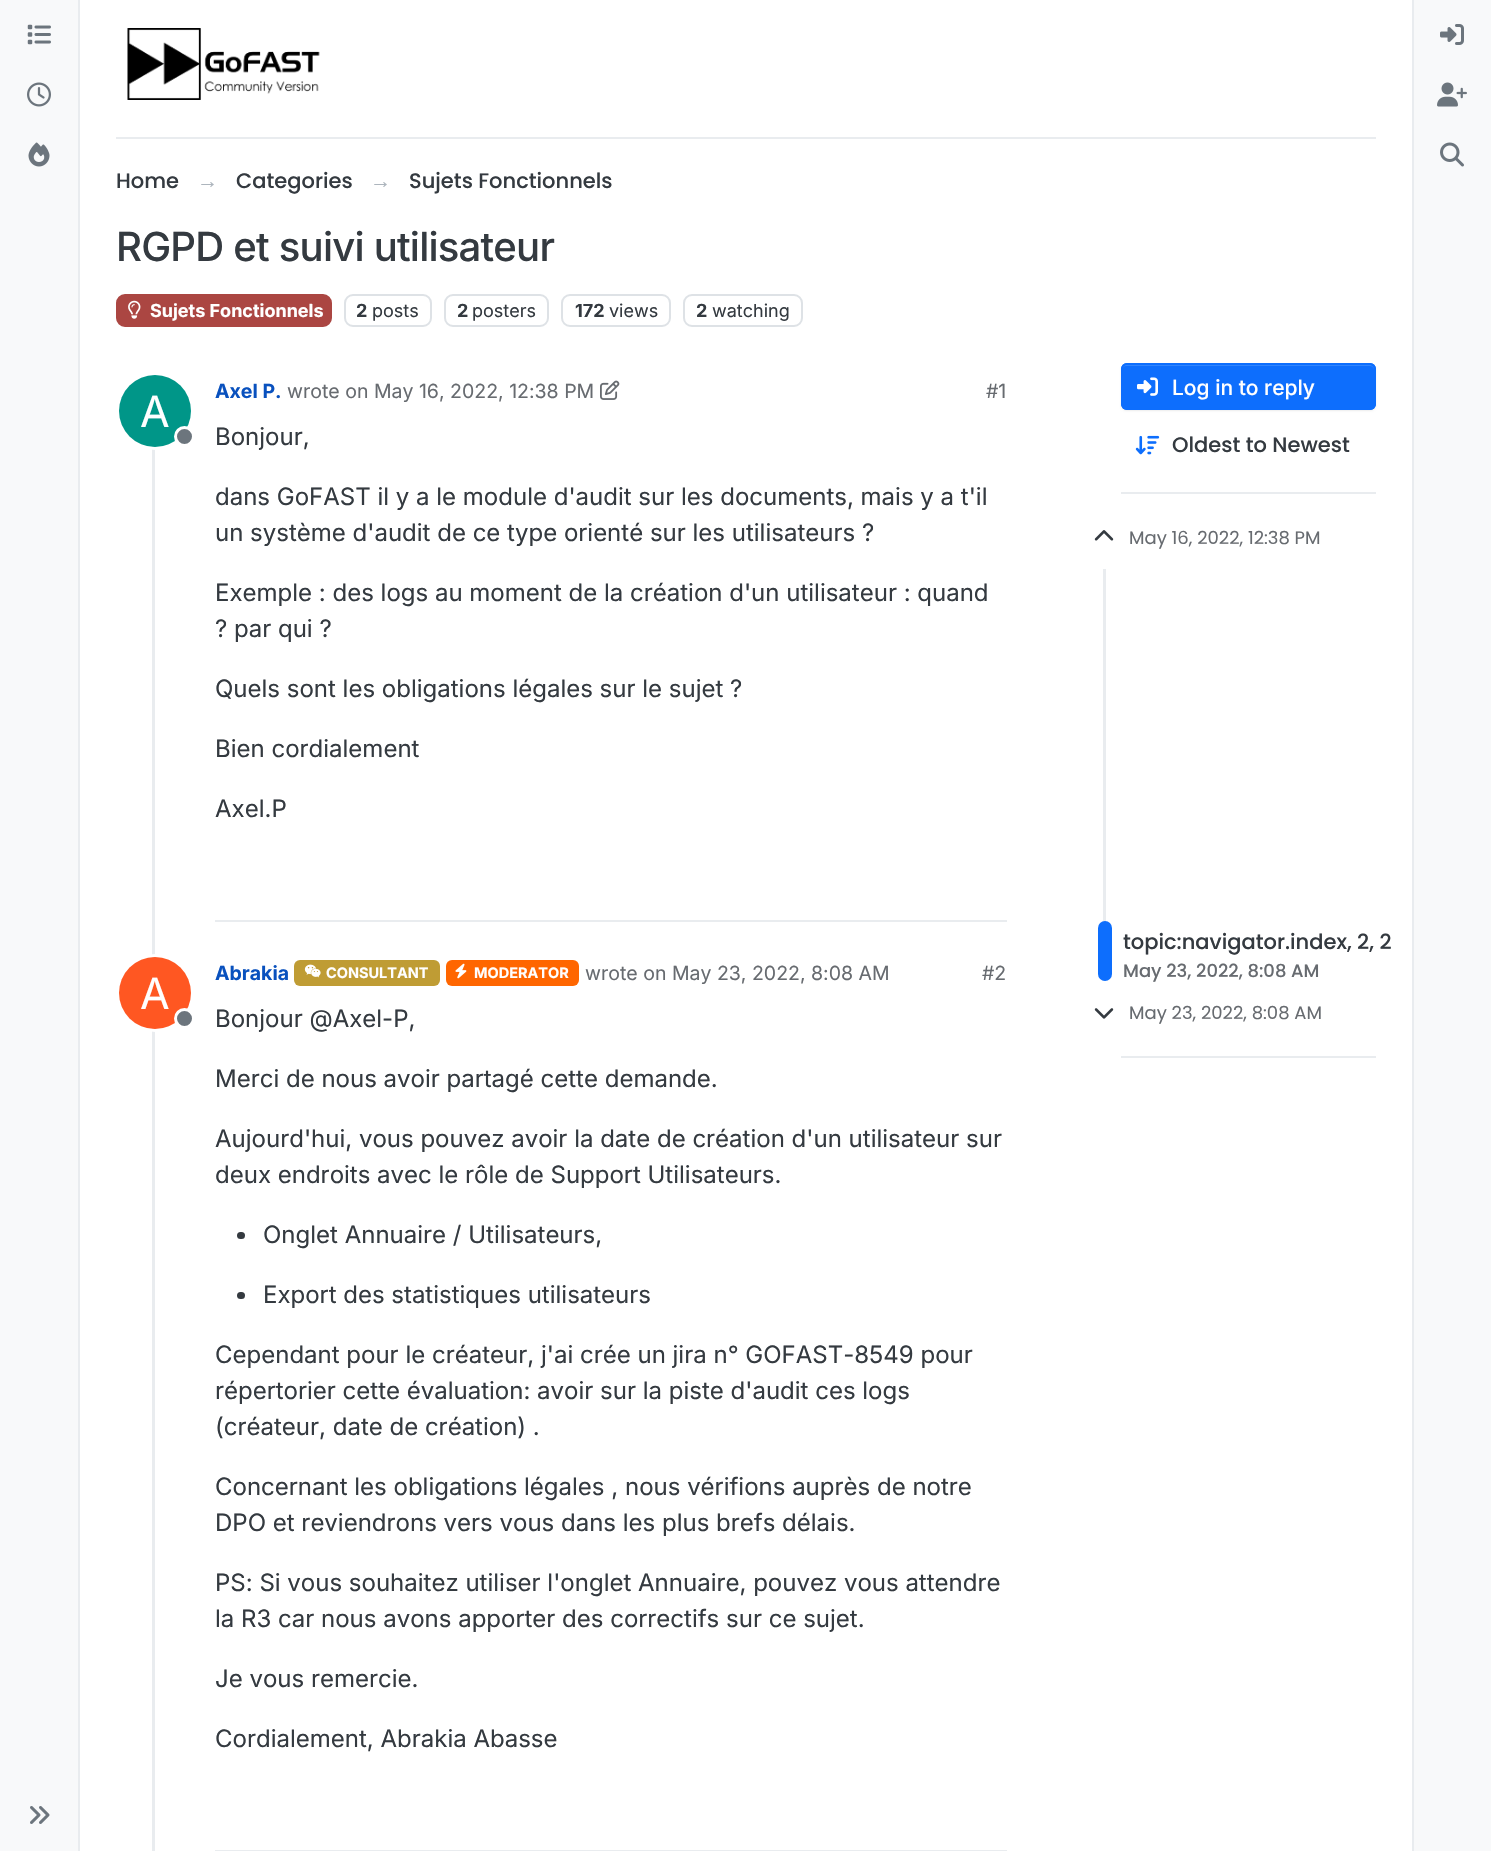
static SkFont makeFont(const char* family, int weight, float size, bool italic = false) {
  SkFontStyle style(weight, SkFontStyle::kNormal_Width,
    italic ? SkFontStyle::kItalic_Slant : SkFontStyle::kUpright_Slant);
  SkFont result(fontMgr->matchFamilyStyle(family, style), size);
  result.setSubpixel(true);
  return result;
}

static void text(SkCanvas* c, const char* s, float x, float y, const SkFont& font, SkColor color) {
  SkPaint ink(SkColor4f::FromColor(color));
  ink.setAntiAlias(true);
  c->drawString(s, x, y, font, ink);
}

static void spacedText(SkCanvas* c, const char* s, float x, float y, const SkFont& font, const SkPaint& ink, float letter, float word) {
  std::vector<SkGlyphID> glyphs(font.countText(s, strlen(s), SkTextEncoding::kUTF8));
  std::vector<float> xs(glyphs.size());
  font.textToGlyphs(s, strlen(s), SkTextEncoding::kUTF8, glyphs);
  font.getXPos(glyphs, xs, x);
  float extra = 0;
  for (size_t i = 0; i < glyphs.size(); i++) {
    xs[i] += extra;
    extra += letter + word * (glyphs[i] == font.unicharToGlyph(' '));
  }
  c->drawTextBlob(SkTextBlob::MakeFromPosHGlyphs(glyphs, xs, y, font), 0, 0, ink);
}

static void box(SkCanvas* c, float l, float t, float r, float b, SkColor color) {
  SkPaint ink(SkColor4f::FromColor(color));
  ink.setAntiAlias(true);
  c->drawRect(SkRect::MakeLTRB(l, t, r, b), ink);
}

static void roundBox(SkCanvas* c, float l, float t, float r, float b, float radius, SkColor color) {
  SkPaint ink(SkColor4f::FromColor(color));
  ink.setAntiAlias(true);
  c->drawRoundRect(SkRect::MakeLTRB(l, t, r, b), radius, radius, ink);
}

static void picture(SkCanvas* c, const char* path, float l, float t, float r, float b) {
  auto image = SkImages::DeferredFromEncodedData(SkData::MakeFromFileName(path));
  c->drawImageRect(image, SkRect::MakeLTRB(l, t, r, b), SkSamplingOptions());
}

void draw(SkCanvas* c) {
  SkPaint paint;
  paint.setAntiAlias(true);
  c->clear(0xffffffff);
  box(c, 0, 0, 78, 1851, 0xfff8f9fa);
  box(c, 78, 0, 80, 1851, 0xffe9ecef);
  picture(c, "img_01.png", 27, 24, 51, 45);
  picture(c, "img_02.png", 27, 82, 51, 107);
  picture(c, "img_03.png", 28, 142, 50, 167);
  picture(c, "img_04.png", 30, 1806, 50, 1824);
  box(c, 116, 137, 1376, 139, 0xffe9ecef);
  picture(c, "img_05.png", 127, 28, 320, 100);
  SkFont face1 = makeFont("Poppins", 500, 21);
  text(c, "Home", 116, 188, face1, 0xff343a40);
  SkFont face2 = makeFont("Liberation Sans", 400, 21);
  text(c, "→", 197, 188, face2, 0xffadb5bd);
  text(c, "Categories", 236, 188, face1, 0xff343a40);
  text(c, "→", 370, 188, face2, 0xffadb5bd);
  text(c, "Sujets Fonctionnels", 409, 188, face1, 0xff343a40);
  SkFont face3 = makeFont("Inter", 500, 40.1f);
  paint.setColor(0xff343a40);
  spacedText(c, "RGPD et suivi utilisateur", 116, 261, face3, paint, -0.8f, 0);
  paint.setColor(0xffab4642);
  c->drawRoundRect(SkRect::MakeLTRB(117, 295, 331, 326), 8, 8, paint);
  paint.setStyle(SkPaint::kStroke_Style);
  paint.setStrokeWidth(2);
  c->drawRoundRect(SkRect::MakeLTRB(117, 295, 331, 326), 8, 8, paint);
  picture(c, "img_06.png", 128, 300, 141, 319);
  SkFont face4 = makeFont("Inter", 700, 18);
  text(c, "Sujets Fonctionnels", 150, 317, face4, 0xffffffff);
  paint.setColor(0xffdee2e6);
  c->drawRoundRect(SkRect::MakeLTRB(345, 295, 431, 326), 8, 8, paint);
  text(c, "2", 356, 317, face4, 0xff343a40);
  SkFont face5 = makeFont("Inter", 400, 18);
  text(c, "posts", 372, 317, face5, 0xff343a40);
  c->drawRoundRect(SkRect::MakeLTRB(445, 295, 548, 326), 8, 8, paint);
  text(c, "2", 457, 317, face4, 0xff343a40);
  text(c, "posters", 472, 317, face5, 0xff343a40);
  c->drawRoundRect(SkRect::MakeLTRB(562, 295, 670, 326), 8, 8, paint);
  text(c, "172", 575, 317, face4, 0xff343a40);
  text(c, "views", 609, 317, face5, 0xff343a40);
  c->drawRoundRect(SkRect::MakeLTRB(684, 295, 802, 326), 8, 8, paint);
  text(c, "2", 696, 317, face4, 0xff343a40);
  text(c, "watching", 712, 317, face5, 0xff343a40);
  box(c, 152, 375, 155, 1851, 0xffe9ecef);
  paint.setStrokeWidth(3);
  paint.setColor(0xffffffff);
  c->drawCircle(155, 411, 37.5f, paint);
  paint.setStyle(SkPaint::kFill_Style);
  paint.setColor(0xff009688);
  c->drawCircle(155, 411, 36, paint);
  SkFont face6 = makeFont("Inter", 400, 43);
  text(c, "A", 140, 427, face6, 0xffffffff);
  paint.setColor(0xff6c757d);
  c->drawCircle(184.5f, 436.5f, 9, paint);
  paint.setStyle(SkPaint::kStroke_Style);
  paint.setColor(0xffffffff);
  c->drawCircle(184.5f, 436.5f, 9, paint);
  SkFont face7 = makeFont("Inter", 700, 19.5f);
  text(c, "Axel P.", 215, 398, face7, 0xff0951be);
  SkFont face8 = makeFont("Inter", 400, 19.5f);
  text(c, "wrote on May 16, 2022, 12:38 PM", 287, 398, face8, 0xff676b70);
  picture(c, "img_07.png", 600, 380, 620, 400);
  text(c, "#1", 986, 398, face8, 0xff676b70);
  SkFont face9 = makeFont("Inter", 400, 24);
  text(c, "Bonjour,", 215, 445, face9, 0xff343a40);
  text(c, "dans GoFAST il y a le module d'audit sur les documents, mais y a t'il", 215, 505, face9, 0xff343a40);
  text(c, "un système d'audit de ce type orienté sur les utilisateurs ?", 215, 541, face9, 0xff343a40);
  text(c, "Exemple : des logs au moment de la création d'un utilisateur : quand", 215, 601, face9, 0xff343a40);
  text(c, "? par qui ?", 215, 637, face9, 0xff343a40);
  text(c, "Quels sont les obligations légales sur le sujet ?", 215, 697, face9, 0xff343a40);
  text(c, "Bien cordialement", 215, 757, face9, 0xff343a40);
  text(c, "Axel.P", 215, 817, face9, 0xff343a40);
  box(c, 215, 920, 1007, 922, 0xffe9ecef);
  c->drawCircle(155, 993, 37.5f, paint);
  paint.setStyle(SkPaint::kFill_Style);
  paint.setColor(0xffff5722);
  c->drawCircle(155, 993, 36, paint);
  text(c, "A", 140, 1009, face6, 0xffffffff);
  paint.setColor(0xff6c757d);
  c->drawCircle(184.5f, 1018.5f, 9, paint);
  paint.setStyle(SkPaint::kStroke_Style);
  paint.setColor(0xffffffff);
  c->drawCircle(184.5f, 1018.5f, 9, paint);
  text(c, "Abrakia", 215, 980, face7, 0xff0951be);
  roundBox(c, 294, 960, 440, 986, 6, 0xffbf9c34);
  picture(c, "img_08.png", 304, 964, 321, 978);
  SkFont face10 = makeFont("Inter", 700, 14.5f);
  text(c, "CONSULTANT", 326, 978, face10, 0xffffffff);
  roundBox(c, 446, 960, 579, 986, 6, 0xffff6600);
  picture(c, "img_09.png", 455, 963, 467, 979);
  text(c, "MODERATOR", 474, 978, face10, 0xffffffff);
  text(c, "wrote on May 23, 2022, 8:08 AM", 585, 980, face8, 0xff676b70);
  text(c, "#2", 982, 980, face8, 0xff676b70);
  text(c, "Bonjour @Axel-P,", 215, 1027, face9, 0xff343a40);
  text(c, "Merci de nous avoir partagé cette demande.", 215, 1087, face9, 0xff343a40);
  text(c, "Aujourd'hui, vous pouvez avoir la date de création d'un utilisateur sur", 215, 1147, face9, 0xff343a40);
  text(c, "deux endroits avec le rôle de Support Utilisateurs.", 215, 1183, face9, 0xff343a40);
  roundBox(c, 237, 1232, 245, 1239, 3.5f, 0xff343a40);
  text(c, "Onglet Annuaire / Utilisateurs,", 263, 1243, face9, 0xff343a40);
  roundBox(c, 237, 1292, 245, 1299, 3.5f, 0xff343a40);
  text(c, "Export des statistiques utilisateurs", 263, 1303, face9, 0xff343a40);
  text(c, "Cependant pour le créateur, j'ai crée un jira n° GOFAST-8549 pour", 215, 1363, face9, 0xff343a40);
  text(c, "répertorier cette évaluation: avoir sur la piste d'audit ces logs", 215, 1399, face9, 0xff343a40);
  text(c, "(créateur, date de création) .", 215, 1435, face9, 0xff343a40);
  text(c, "Concernant les obligations légales , nous vérifions auprès de notre", 215, 1495, face9, 0xff343a40);
  text(c, "DPO et reviendrons vers vous dans les plus brefs délais.", 215, 1531, face9, 0xff343a40);
  text(c, "PS: Si vous souhaitez utiliser l'onglet Annuaire, pouvez vous attendre", 215, 1591, face9, 0xff343a40);
  text(c, "la R3 car nous avons apporter des correctifs sur ce sujet.", 215, 1627, face9, 0xff343a40);
  text(c, "Je vous remercie.", 215, 1687, face9, 0xff343a40);
  text(c, "Cordialement, Abrakia Abasse", 215, 1747, face9, 0xff343a40);
  box(c, 215, 1850, 1007, 1851, 0xffe9ecef);
  paint.setStyle(SkPaint::kFill_Style);
  paint.setColor(0x12000000);
  paint.setMaskFilter(SkMaskFilter::MakeBlur(kNormal_SkBlurStyle, 1));
  c->drawRoundRect(SkRect::MakeLTRB(1121, 365, 1376, 411), 6, 6, paint);
  paint.setMaskFilter(nullptr);
  roundBox(c, 1121, 363, 1376, 410, 6, 0xff0d6efd);
  paint.setColor(0xff3184fd);
  c->drawPath(SkPathBuilder().moveTo(1126, 366).lineTo(1370, 366).cubicTo(1372, 366, 1374, 368, 1374, 370).cubicTo(1374, 367, 1372, 365, 1369, 365).lineTo(1127, 365).cubicTo(1124, 365, 1122, 367, 1122, 370).cubicTo(1122, 368, 1124, 366, 1126, 366).close().detach(), paint);
  paint.setStyle(SkPaint::kStroke_Style);
  paint.setStrokeWidth(2);
  paint.setColor(0xff0d6efd);
  c->drawRoundRect(SkRect::MakeLTRB(1122, 364, 1375, 409), 5, 5, paint);
  picture(c, "img_10.png", 1137, 377, 1158, 396);
  SkFont face11 = makeFont("Inter", 500, 21);
  text(c, "Log in to reply", 1172, 395, face11, 0xffffffff);
  picture(c, "img_11.png", 1135, 435, 1160, 455);
  text(c, "Oldest to Newest", 1172, 452, face1, 0xff343a40);
  box(c, 1121, 492, 1376, 494, 0xffe9ecef);
  picture(c, "img_12.png", 1094, 530, 1114, 541);
  SkFont face12 = makeFont("Poppins", 400, 18);
  text(c, "May 16, 2022, 12:38 PM", 1129, 544, face12, 0xff676b70);
  box(c, 1103, 569, 1106, 981, 0xffe9ecef);
  roundBox(c, 1098, 921, 1112, 981, 7, 0xff0d6efd);
  text(c, "topic:navigator.index, 2, 2", 1123, 949, face1, 0xff343a40);
  SkFont face13 = makeFont("Poppins", 500, 18);
  text(c, "May 23, 2022, 8:08 AM", 1123, 977, face13, 0xff676b70);
  picture(c, "img_13.png", 1094, 1008, 1114, 1019);
  text(c, "May 23, 2022, 8:08 AM", 1129, 1019, face12, 0xff676b70);
  box(c, 1121, 1056, 1376, 1058, 0xffe9ecef);
  box(c, 1414, 0, 1491, 1851, 0xfff8f9fa);
  box(c, 1412, 0, 1414, 1851, 0xffe9ecef);
  picture(c, "img_14.png", 1440, 24, 1464, 45);
  picture(c, "img_15.png", 1437, 82, 1467, 107);
  picture(c, "img_16.png", 1440, 142, 1464, 167);
}
